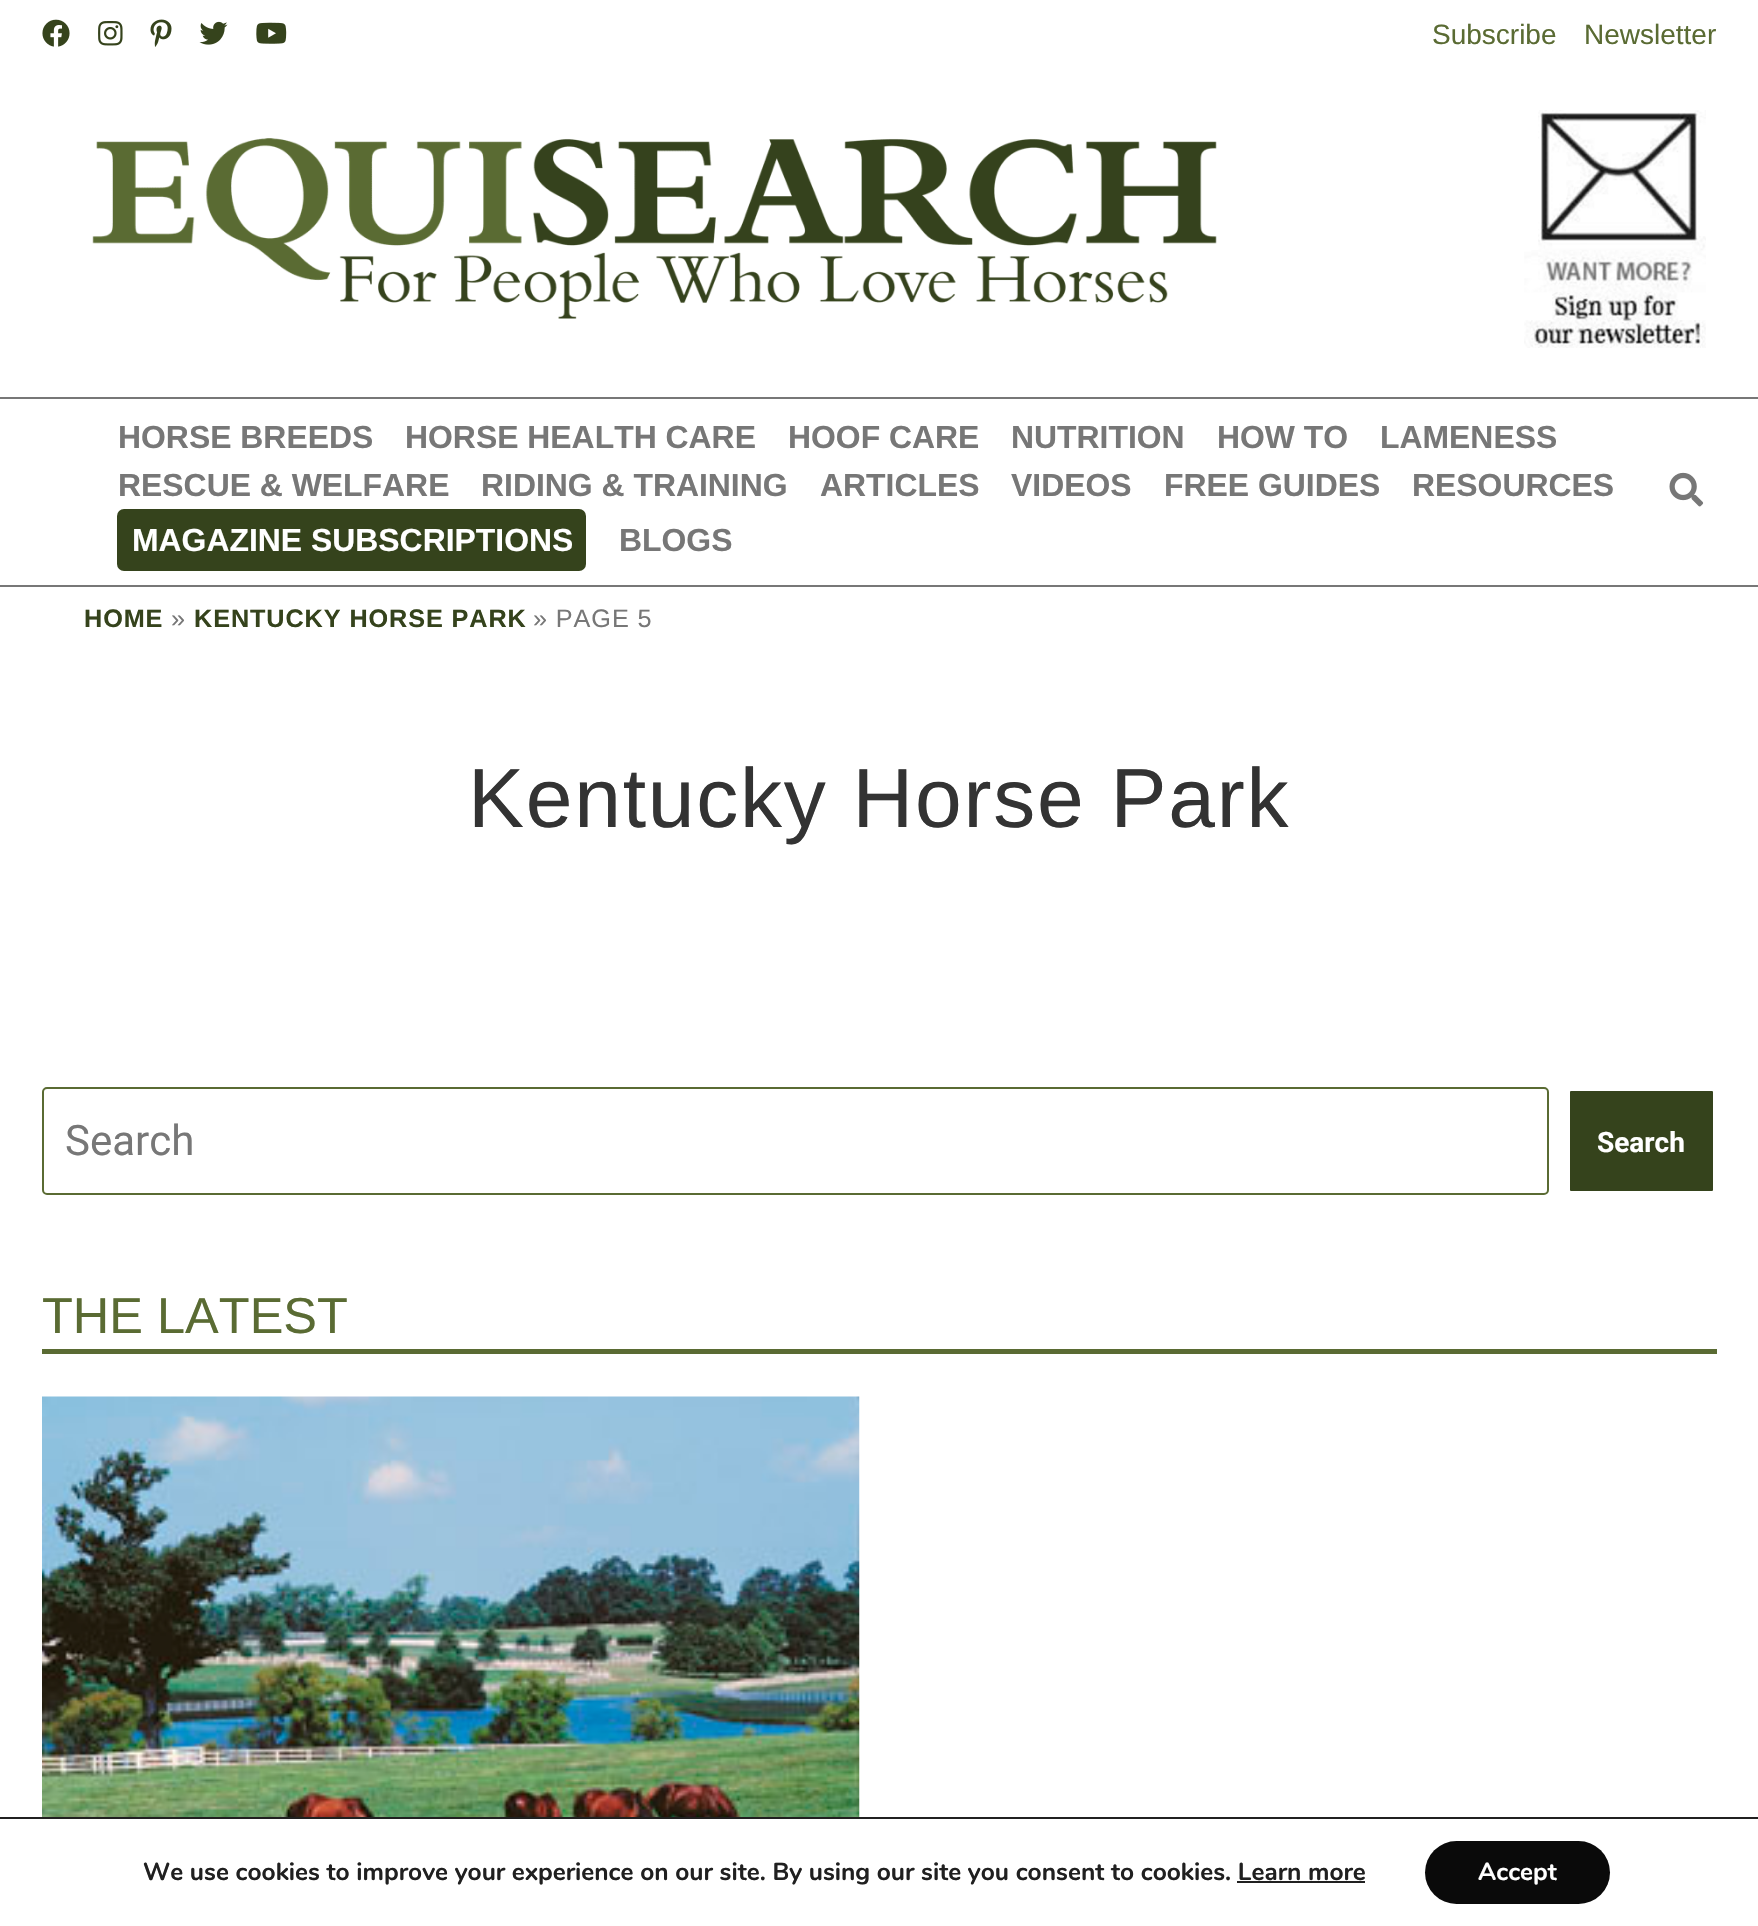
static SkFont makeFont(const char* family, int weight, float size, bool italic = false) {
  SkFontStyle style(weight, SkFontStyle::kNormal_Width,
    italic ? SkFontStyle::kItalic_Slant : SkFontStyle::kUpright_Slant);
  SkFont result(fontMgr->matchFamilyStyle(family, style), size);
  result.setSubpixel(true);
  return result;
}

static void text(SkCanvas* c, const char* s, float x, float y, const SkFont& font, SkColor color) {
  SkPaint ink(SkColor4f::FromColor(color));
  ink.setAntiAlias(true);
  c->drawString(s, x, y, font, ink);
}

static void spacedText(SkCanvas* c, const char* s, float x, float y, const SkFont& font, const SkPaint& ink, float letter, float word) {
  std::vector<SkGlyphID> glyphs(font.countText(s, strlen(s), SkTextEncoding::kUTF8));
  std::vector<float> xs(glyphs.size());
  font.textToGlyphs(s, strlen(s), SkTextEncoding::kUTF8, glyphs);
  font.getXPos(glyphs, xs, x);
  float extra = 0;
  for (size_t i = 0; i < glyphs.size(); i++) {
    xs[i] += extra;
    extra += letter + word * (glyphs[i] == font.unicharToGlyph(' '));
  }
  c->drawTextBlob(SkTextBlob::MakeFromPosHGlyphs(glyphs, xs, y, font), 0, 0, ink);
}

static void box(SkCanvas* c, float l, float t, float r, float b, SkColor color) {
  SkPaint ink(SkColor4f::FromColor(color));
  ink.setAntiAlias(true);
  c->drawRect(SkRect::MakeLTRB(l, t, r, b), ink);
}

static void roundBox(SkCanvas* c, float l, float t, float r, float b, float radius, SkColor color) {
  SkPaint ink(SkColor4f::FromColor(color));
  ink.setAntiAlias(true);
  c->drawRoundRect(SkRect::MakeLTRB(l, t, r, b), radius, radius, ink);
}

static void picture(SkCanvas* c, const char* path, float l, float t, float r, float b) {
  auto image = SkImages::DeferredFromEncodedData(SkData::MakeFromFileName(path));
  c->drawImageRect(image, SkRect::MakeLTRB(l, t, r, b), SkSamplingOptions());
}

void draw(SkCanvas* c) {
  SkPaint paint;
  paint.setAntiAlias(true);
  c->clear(0xffffffff);
  picture(c, "img_01.png", 42, 19, 70, 47);
  picture(c, "img_02.png", 98, 21, 123, 46);
  picture(c, "img_03.png", 150, 19, 172, 47);
  picture(c, "img_04.png", 199, 21, 228, 45);
  picture(c, "img_05.png", 256, 22, 287, 44);
  SkFont face1 = makeFont("Liberation Sans", 400, 28);
  text(c, "Subscribe", 1432, 44, face1, 0xff5a6b33);
  text(c, "Newsletter", 1584, 44, face1, 0xff5a6b33);
  picture(c, "img_06.png", 92, 138, 1217, 319);
  picture(c, "img_07.png", 1524, 110, 1706, 348);
  box(c, 0, 397, 1758, 399, 0xff777777);
  box(c, 0, 585, 1758, 587, 0xff777777);
  SkFont face2 = makeFont("Liberation Sans", 700, 31.9f);
  text(c, "HORSE BREEDS", 118, 448, face2, 0xff777777);
  text(c, "HORSE HEALTH CARE", 405, 448, face2, 0xff777777);
  text(c, "HOOF CARE", 788, 448, face2, 0xff777777);
  text(c, "NUTRITION", 1011, 448, face2, 0xff777777);
  text(c, "HOW TO", 1217, 448, face2, 0xff777777);
  text(c, "LAMENESS", 1380, 448, face2, 0xff777777);
  text(c, "RESCUE & WELFARE", 118, 496, face2, 0xff777777);
  text(c, "RIDING & TRAINING", 481, 496, face2, 0xff777777);
  text(c, "ARTICLES", 820, 496, face2, 0xff777777);
  text(c, "VIDEOS", 1011, 496, face2, 0xff777777);
  text(c, "FREE GUIDES", 1164, 496, face2, 0xff777777);
  text(c, "RESOURCES", 1412, 496, face2, 0xff777777);
  roundBox(c, 117, 509, 586, 571, 7, 0xff35431c);
  text(c, "MAGAZINE SUBSCRIPTIONS", 132, 551, face2, 0xffffffff);
  text(c, "BLOGS", 619, 551, face2, 0xff777777);
  picture(c, "img_08.png", 1669, 472, 1704, 507);
  SkFont face3 = makeFont("Liberation Sans", 700, 25.25f);
  paint.setColor(0xff35431c);
  spacedText(c, "HOME", 84, 627, face3, paint, 0.9f, 0);
  SkFont face4 = makeFont("Liberation Sans", 400, 25.25f);
  paint.setColor(0xff777777);
  spacedText(c, "»", 171, 627, face4, paint, 0.9f, 0);
  paint.setColor(0xff35431c);
  spacedText(c, "KENTUCKY HORSE PARK", 194, 627, face3, paint, 0.9f, 0);
  paint.setColor(0xff777777);
  spacedText(c, "» PAGE 5", 533, 627, face4, paint, 0.9f, 0);
  SkFont face5 = makeFont("Liberation Sans", 400, 84);
  paint.setColor(0xff333333);
  spacedText(c, "Kentucky Horse Park", 468, 827, face5, paint, 1.75f, 0);
  paint.setStyle(SkPaint::kStroke_Style);
  paint.setStrokeWidth(2);
  paint.setColor(0xff5a6b33);
  c->drawRoundRect(SkRect::MakeLTRB(43, 1088, 1548, 1194), 4, 4, paint);
  SkFont face6 = makeFont("Roboto", 400, 42);
  text(c, "Search", 65, 1155, face6, 0xff777777);
  paint.setStyle(SkPaint::kFill_Style);
  paint.setColor(0xff35431c);
  c->drawRoundRect(SkRect::MakeLTRB(1568, 1089, 1715, 1193), 3, 3, paint);
  paint.setStyle(SkPaint::kStroke_Style);
  paint.setStrokeWidth(4);
  paint.setColor(0xffffffff);
  c->drawRoundRect(SkRect::MakeLTRB(1568, 1089, 1715, 1193), 3, 3, paint);
  SkFont face7 = makeFont("Roboto", 700, 28);
  text(c, "Search", 1597, 1152, face7, 0xffffffff);
  SkFont face8 = makeFont("Liberation Sans", 400, 50.5f);
  text(c, "THE LATEST", 42, 1333, face8, 0xff5a6b33);
  box(c, 42, 1349, 1717, 1354, 0xff5a6b33);
  picture(c, "img_09.png", 42, 1396, 860, 1817);
  box(c, 0, 1817, 1758, 1819, 0xff202020);
  SkFont face9 = makeFont("Nunito", 700, 24.5f);
  text(c, "We use cookies to improve your experience on our site. By using our site you consent to cookies. Learn more", 143, 1880, face9, 0xff202020);
  box(c, 1237, 1881, 1365, 1883, 0xff202020);
  roundBox(c, 1425, 1841, 1610, 1904, 31.5f, 0xff0a0a0a);
  text(c, "Accept", 1478, 1880, face9, 0xffffffff);
}
